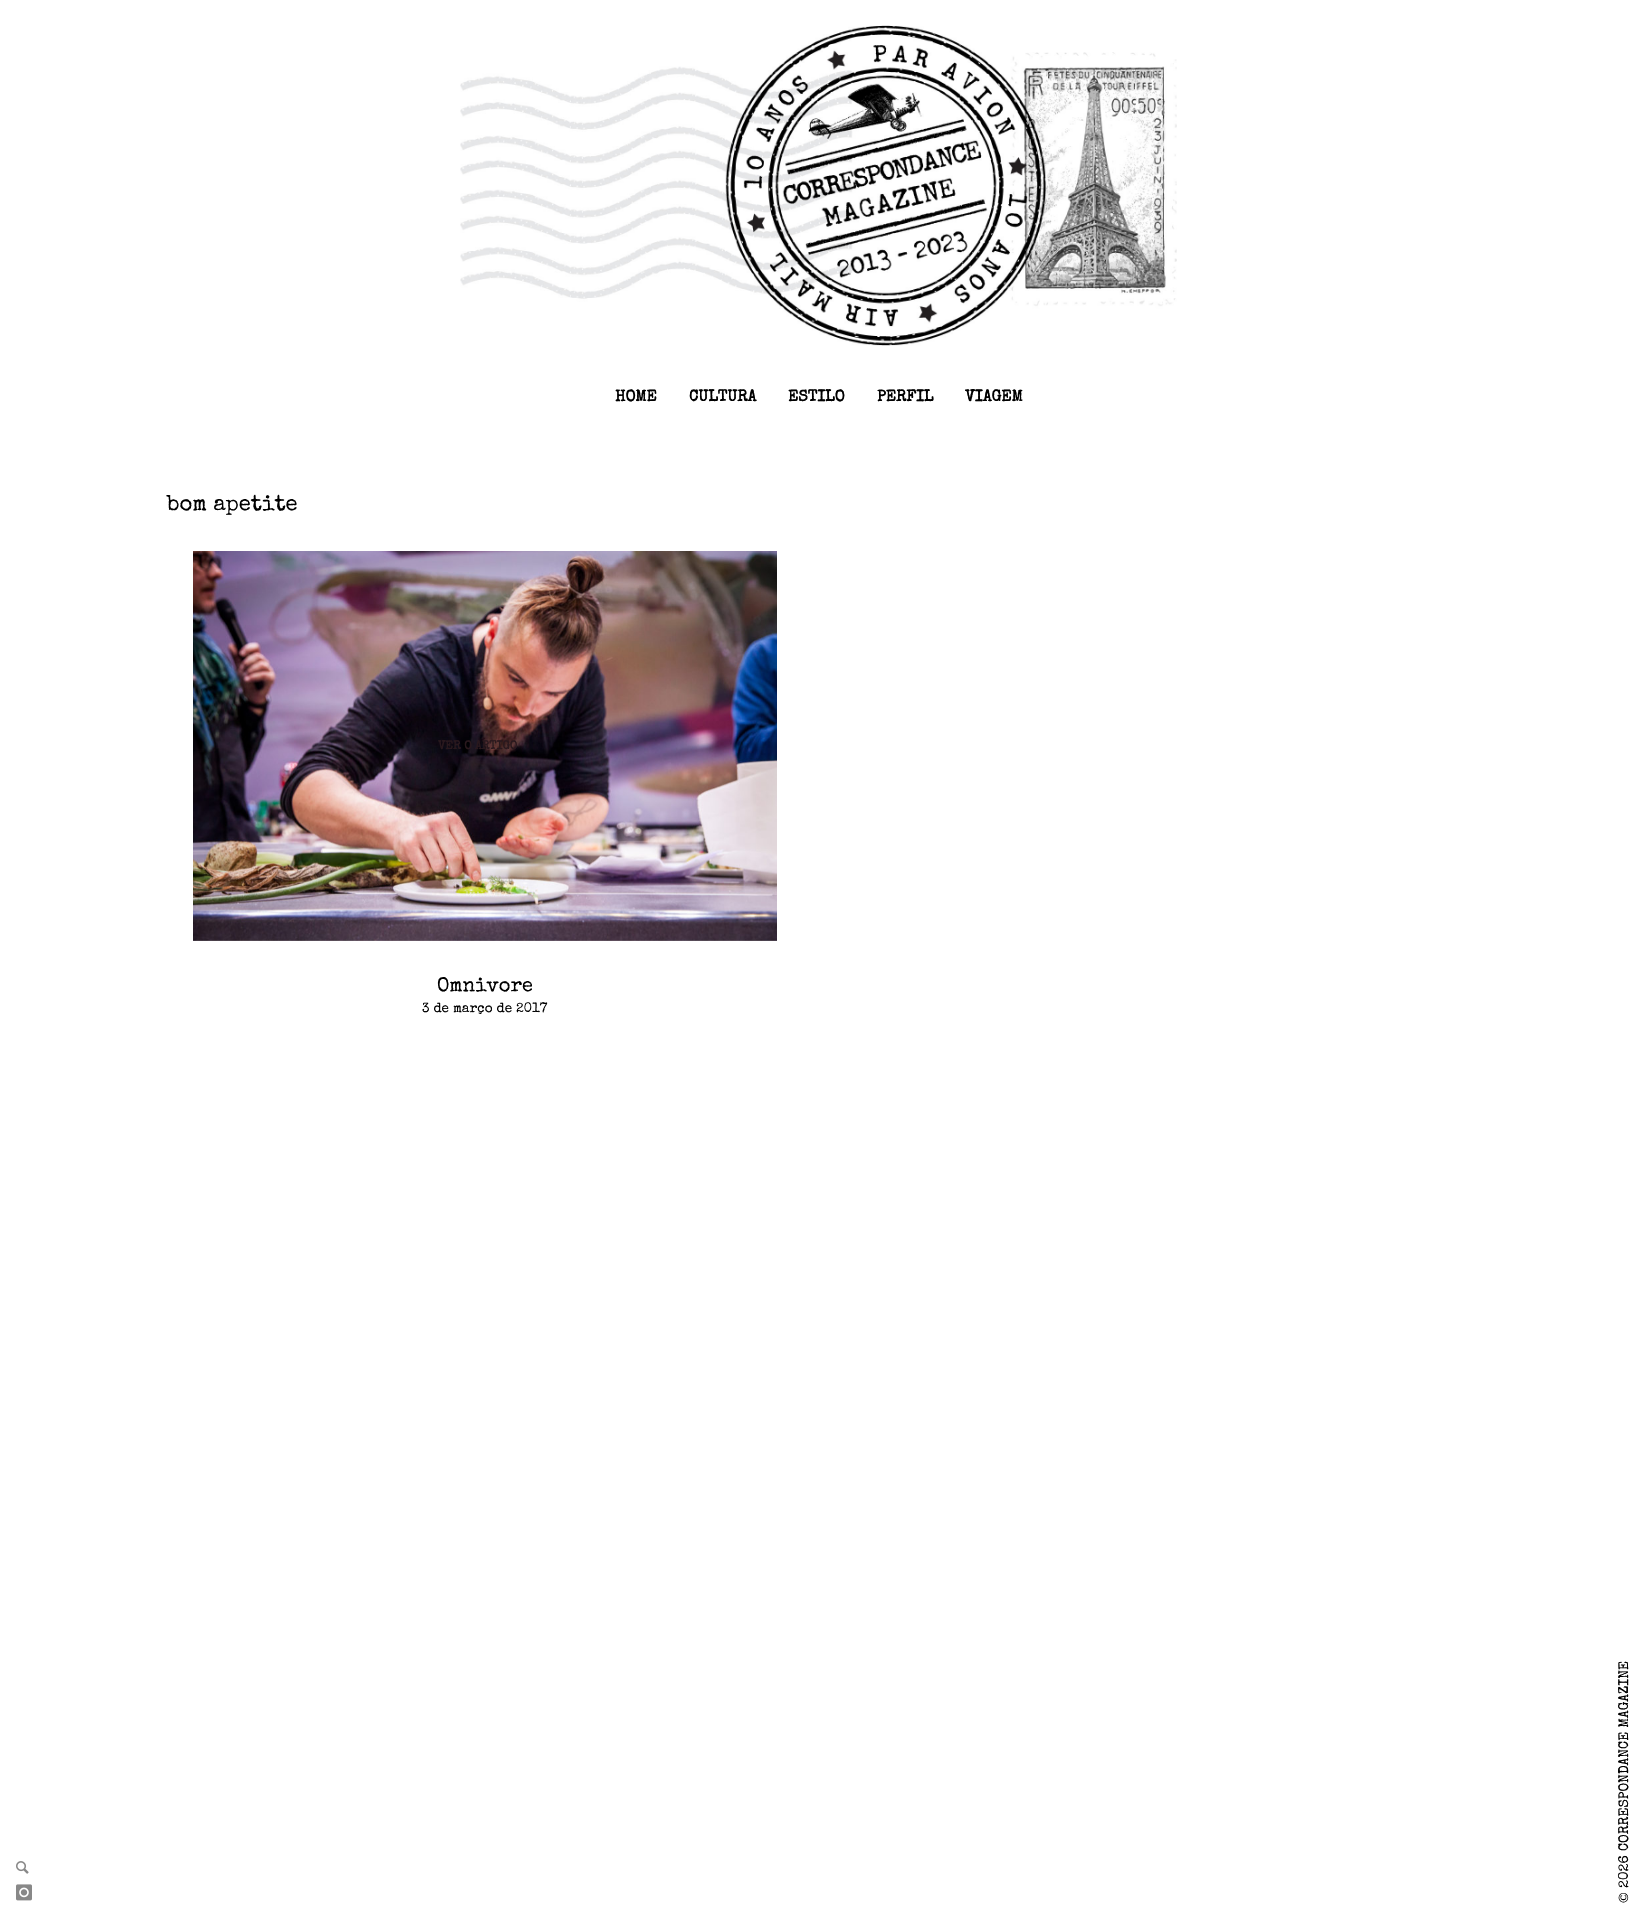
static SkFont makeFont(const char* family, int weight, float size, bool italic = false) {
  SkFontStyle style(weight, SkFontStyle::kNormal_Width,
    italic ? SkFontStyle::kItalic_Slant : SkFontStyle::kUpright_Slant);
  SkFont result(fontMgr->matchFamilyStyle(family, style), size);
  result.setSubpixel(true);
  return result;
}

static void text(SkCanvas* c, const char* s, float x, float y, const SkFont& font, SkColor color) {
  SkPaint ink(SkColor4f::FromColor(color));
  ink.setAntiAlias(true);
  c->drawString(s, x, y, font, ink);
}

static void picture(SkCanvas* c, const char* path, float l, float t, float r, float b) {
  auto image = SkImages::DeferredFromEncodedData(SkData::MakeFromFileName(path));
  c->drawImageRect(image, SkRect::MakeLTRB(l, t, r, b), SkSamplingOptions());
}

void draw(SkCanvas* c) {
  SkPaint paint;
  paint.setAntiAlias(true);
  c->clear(0xffffffff);
  picture(c, "img_01.png", 460, 25, 1177, 346);
  SkFont face1 = makeFont("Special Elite", 700, 16);
  text(c, "HOME", 615, 401, face1, 0xff000000);
  text(c, "CULTURA", 689, 401, face1, 0xff000000);
  text(c, "ESTILO", 788, 401, face1, 0xff000000);
  text(c, "PERFIL", 877, 401, face1, 0xff000000);
  text(c, "VIAGEM", 965, 401, face1, 0xff000000);
  SkFont face2 = makeFont("Special Elite", 400, 22);
  text(c, "bom apetite", 167, 510, face2, 0xff000000);
  picture(c, "img_02.png", 193, 551, 777, 941);
  SkFont face3 = makeFont("Special Elite", 700, 12);
  text(c, "VER O ARTIGO", 438, 749, face3, 0xff29181d);
  SkFont face4 = makeFont("Special Elite", 400, 20);
  text(c, "Omnivore", 437, 991, face4, 0xff000000);
  SkFont face5 = makeFont("Special Elite", 400, 13.5f);
  text(c, "3 de março de 2017", 422, 1012, face5, 0xff000000);
  picture(c, "img_03.png", 16, 1861, 29, 1874);
  picture(c, "img_04.png", 16, 1884, 32, 1901);
  SkFont face6 = makeFont("Special Elite", 400, 14);
  c->save();
  c->rotate(-90, 1628, 1888);
  text(c, "2026 CORRESPONDANCE MAGAZINE", 1628, 1888, face6, 0xff000000);
  c->restore();
  SkFont face7 = makeFont("Liberation Serif", 700, 14);
  c->save();
  c->rotate(-90, 1628, 1903);
  text(c, "©", 1628, 1903, face7, 0xff000000);
  c->restore();
}
